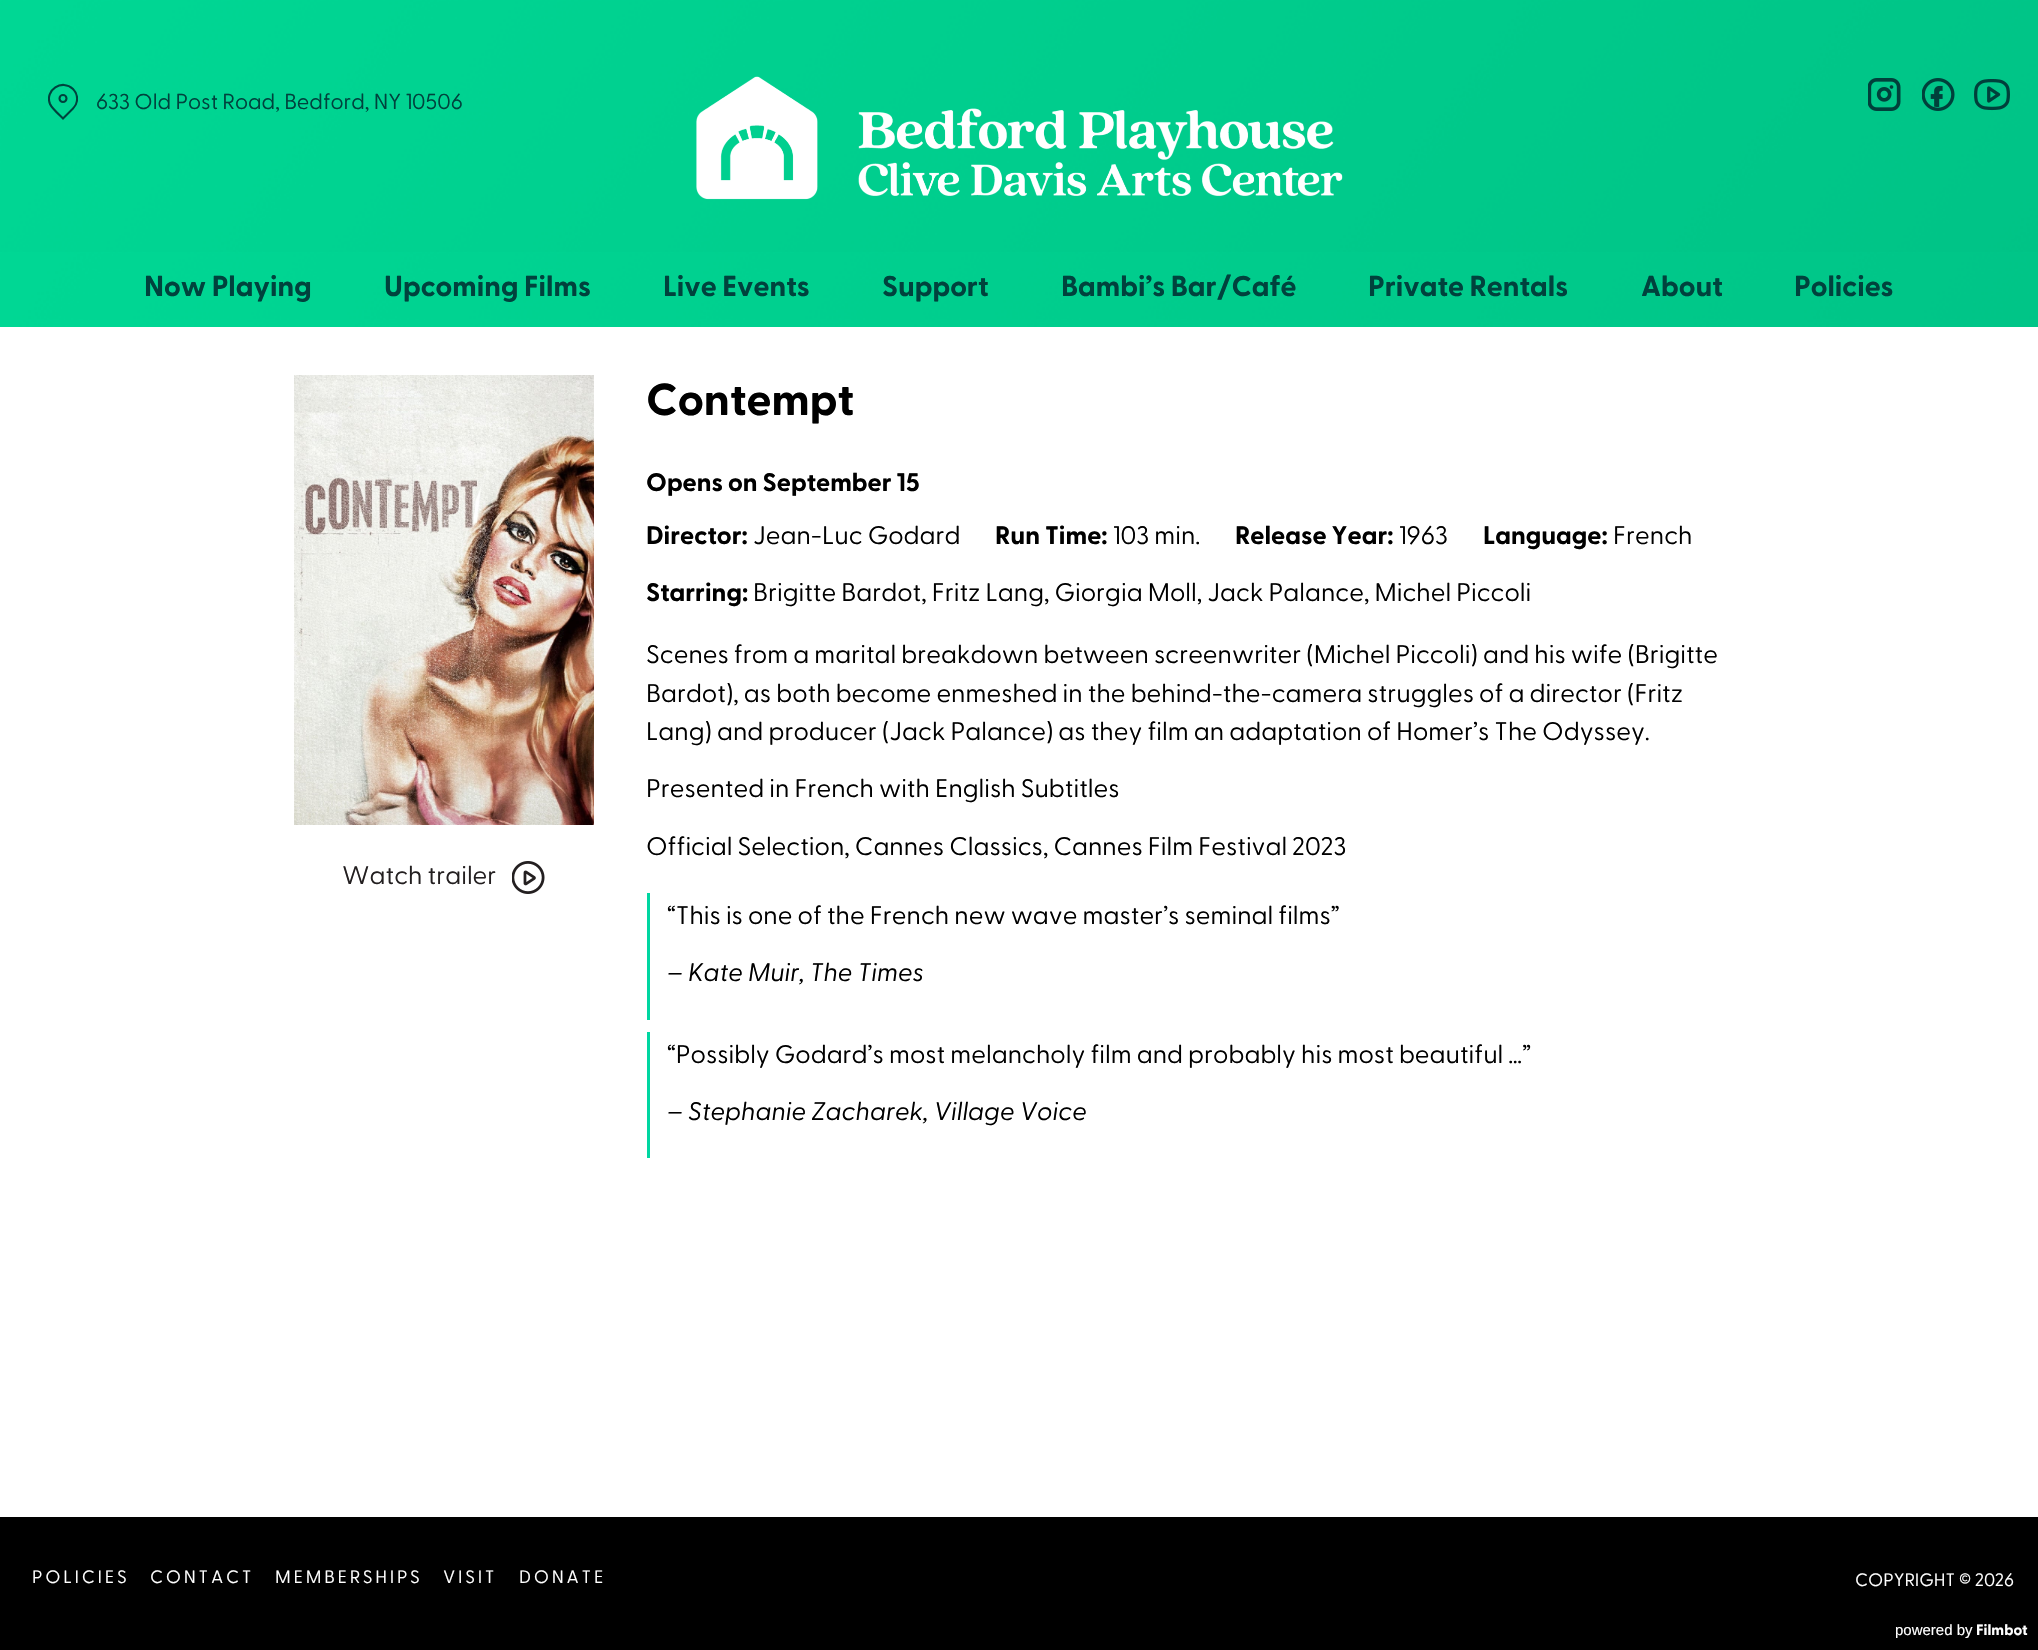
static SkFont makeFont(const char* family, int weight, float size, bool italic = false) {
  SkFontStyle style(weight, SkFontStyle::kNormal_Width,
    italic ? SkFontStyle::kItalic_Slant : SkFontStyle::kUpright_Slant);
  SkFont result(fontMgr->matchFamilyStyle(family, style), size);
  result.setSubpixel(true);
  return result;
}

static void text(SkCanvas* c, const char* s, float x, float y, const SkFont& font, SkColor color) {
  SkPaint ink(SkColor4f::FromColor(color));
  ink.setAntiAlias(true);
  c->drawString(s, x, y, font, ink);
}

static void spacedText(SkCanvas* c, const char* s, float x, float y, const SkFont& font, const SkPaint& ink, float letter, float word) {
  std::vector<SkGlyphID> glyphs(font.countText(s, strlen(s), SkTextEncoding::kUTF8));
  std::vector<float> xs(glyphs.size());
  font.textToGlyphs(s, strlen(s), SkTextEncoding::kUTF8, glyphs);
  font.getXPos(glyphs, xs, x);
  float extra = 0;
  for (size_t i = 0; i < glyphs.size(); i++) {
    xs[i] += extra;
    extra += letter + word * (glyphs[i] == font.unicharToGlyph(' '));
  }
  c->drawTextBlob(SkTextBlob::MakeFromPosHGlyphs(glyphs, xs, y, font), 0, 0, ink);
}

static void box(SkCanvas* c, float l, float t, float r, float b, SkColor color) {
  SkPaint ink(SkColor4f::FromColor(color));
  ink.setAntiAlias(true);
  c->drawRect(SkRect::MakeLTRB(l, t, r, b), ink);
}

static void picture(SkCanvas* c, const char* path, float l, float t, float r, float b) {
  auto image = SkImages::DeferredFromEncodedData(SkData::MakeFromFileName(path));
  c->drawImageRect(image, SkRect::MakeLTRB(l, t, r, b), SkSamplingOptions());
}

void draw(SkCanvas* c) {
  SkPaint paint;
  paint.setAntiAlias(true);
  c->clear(0xffffffff);
  picture(c, "img_01.png", 0, 0, 2038, 252);
  c->save();
  c->clipRect(SkRect::MakeLTRB(48, 77, 78, 128));
  paint.setStyle(SkPaint::kStroke_Style);
  paint.setStrokeWidth(2.1f);
  paint.setColor(0xff00423d);
  c->drawPath(SkPathBuilder().moveTo(73, 89).cubicTo(78.5f, 94.5f, 78.5f, 103, 73, 108.5f).lineTo(63, 118.5f).cubicTo(59.5f, 115, 52, 108.5f, 50, 104).cubicTo(44.5f, 90, 62, 78.5f, 73, 89).close().detach(), paint);
  c->restore();
  c->drawCircle(63, 98.5f, 3.5f, paint);
  SkFont face1 = makeFont("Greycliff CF", 400, 21.7f);
  text(c, "633 Old Post Road, Bedford, NY 10506", 96, 109, face1, 0xff00423d);
  picture(c, "img_02.png", 696, 76, 1343, 200);
  picture(c, "img_03.png", 1868, 78, 1901, 111);
  picture(c, "img_04.png", 1922, 78, 1955, 111);
  picture(c, "img_05.png", 1974, 79, 2010, 111);
  picture(c, "img_06.png", 0, 252, 2038, 327);
  SkFont face2 = makeFont("Greycliff CF", 700, 28.75f);
  text(c, "Now Playing", 144, 296, face2, 0xff00423d);
  text(c, "Upcoming Films", 384, 296, face2, 0xff00423d);
  text(c, "Live Events", 663, 296, face2, 0xff00423d);
  text(c, "Support", 882, 296, face2, 0xff00423d);
  text(c, "Bambi’s Bar/Café", 1061, 296, face2, 0xff00423d);
  text(c, "Private Rentals", 1368, 296, face2, 0xff00423d);
  text(c, "About", 1641, 296, face2, 0xff00423d);
  text(c, "Policies", 1794, 296, face2, 0xff00423d);
  picture(c, "img_07.png", 294, 375, 594, 825);
  SkFont face3 = makeFont("Greycliff CF", 400, 25.5f);
  text(c, "Watch trailer", 342, 884, face3, 0xff231f20);
  picture(c, "img_08.png", 512, 861, 545, 894);
  SkFont face4 = makeFont("Greycliff CF", 700, 45);
  text(c, "Contempt", 646, 415, face4, 0xff000000);
  SkFont face5 = makeFont("Greycliff CF", 700, 25.5f);
  text(c, "Opens on September 15", 646, 491, face5, 0xff000000);
  text(c, "Director:", 646, 544, face5, 0xff000000);
  text(c, "Jean-Luc Godard", 753, 544, face3, 0xff000000);
  text(c, "Run Time:", 995, 544, face5, 0xff000000);
  text(c, "103 min.", 1113, 544, face3, 0xff000000);
  text(c, "Release Year:", 1235, 544, face5, 0xff000000);
  text(c, "1963", 1399, 544, face3, 0xff000000);
  text(c, "Language:", 1483, 544, face5, 0xff000000);
  text(c, "French", 1613, 544, face3, 0xff000000);
  text(c, "Starring:", 646, 601, face5, 0xff000000);
  text(c, "Brigitte Bardot, Fritz Lang, Giorgia Moll, Jack Palance, Michel Piccoli", 753, 601, face3, 0xff000000);
  text(c, "Scenes from a marital breakdown between screenwriter (Michel Piccoli) and his wife (Brigitte", 646, 663, face3, 0xff000000);
  text(c, "Bardot), as both become enmeshed in the behind-the-camera struggles of a director (Fritz", 646, 702, face3, 0xff000000);
  text(c, "Lang) and producer (Jack Palance) as they film an adaptation of Homer’s The Odyssey.", 646, 740, face3, 0xff000000);
  text(c, "Presented in French with English Subtitles", 646, 797, face3, 0xff000000);
  text(c, "Official Selection, Cannes Classics, Cannes Film Festival 2023", 646, 855, face3, 0xff000000);
  box(c, 647, 893, 650, 1020, 0xff00d6a1);
  text(c, "“This is one of the French new wave master’s seminal films”", 667, 924, face3, 0xff000000);
  SkFont face6 = makeFont("Greycliff CF", 400, 25.5f, true);
  text(c, "– Kate Muir, The Times", 667, 981, face6, 0xff000000);
  box(c, 647, 1032, 650, 1158, 0xff00d6a1);
  text(c, "“Possibly Godard’s most melancholy film and probably his most beautiful …”", 667, 1063, face3, 0xff000000);
  text(c, "– Stephanie Zacharek, Village Voice", 667, 1120, face6, 0xff000000);
  box(c, 0, 1517, 2038, 1650, 0xff000000);
  SkFont face7 = makeFont("Greycliff CF", 400, 18);
  paint.setStyle(SkPaint::kFill_Style);
  paint.setColor(0xffffffff);
  spacedText(c, "POLICIES", 32, 1583, face7, paint, 2.75f, 0);
  spacedText(c, "CONTACT", 150, 1583, face7, paint, 2.75f, 0);
  spacedText(c, "MEMBERSHIPS", 275, 1583, face7, paint, 2.75f, 0);
  spacedText(c, "VISIT", 443, 1583, face7, paint, 2.75f, 0);
  spacedText(c, "DONATE", 519, 1583, face7, paint, 2.75f, 0);
  text(c, "COPYRIGHT © 2026", 1855, 1586, face7, 0xffffffff);
  SkFont face8 = makeFont("Liberation Sans", 400, 15);
  text(c, "powered by", 1895, 1635, face8, 0xffffffff);
  SkFont face9 = makeFont("Greycliff CF", 700, 15);
  text(c, "Filmbot", 1976, 1635, face9, 0xffffffff);
}
